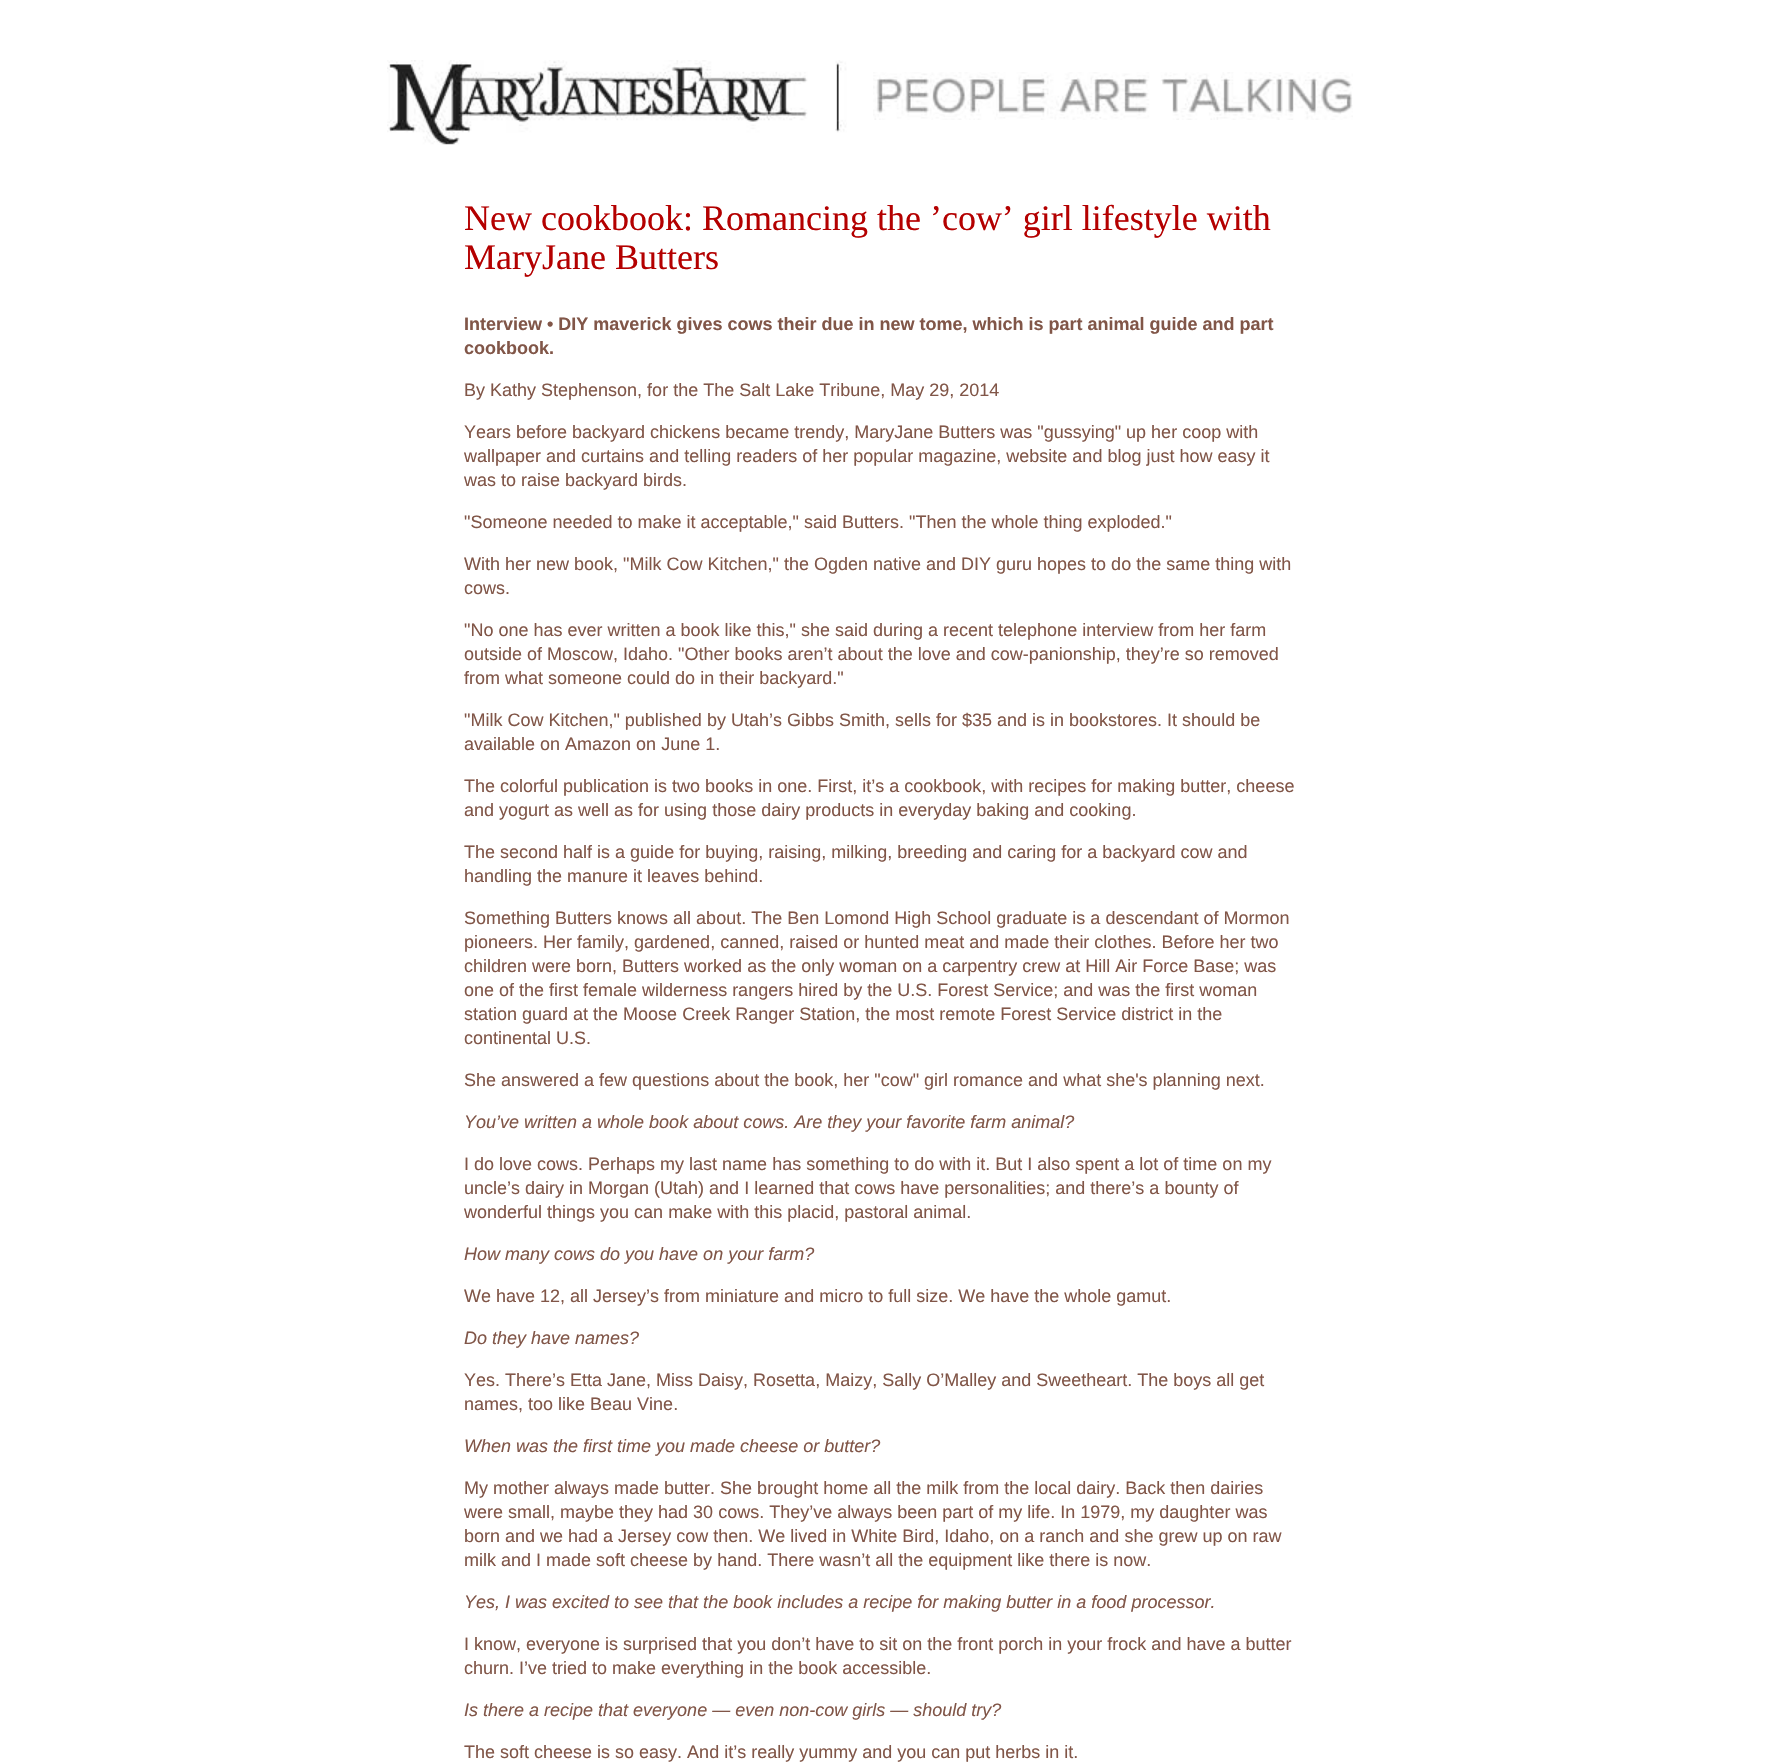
static SkFont makeFont(const char* family, int weight, float size, bool italic = false) {
  SkFontStyle style(weight, SkFontStyle::kNormal_Width,
    italic ? SkFontStyle::kItalic_Slant : SkFontStyle::kUpright_Slant);
  SkFont result(fontMgr->matchFamilyStyle(family, style), size);
  result.setSubpixel(true);
  return result;
}

static void text(SkCanvas* c, const char* s, float x, float y, const SkFont& font, SkColor color) {
  SkPaint ink(SkColor4f::FromColor(color));
  ink.setAntiAlias(true);
  c->drawString(s, x, y, font, ink);
}

static void picture(SkCanvas* c, const char* path, float l, float t, float r, float b) {
  auto image = SkImages::DeferredFromEncodedData(SkData::MakeFromFileName(path));
  c->drawImageRect(image, SkRect::MakeLTRB(l, t, r, b), SkSamplingOptions());
}

void draw(SkCanvas* c) {
  SkPaint paint;
  paint.setAntiAlias(true);
  c->clear(0xffffffff);
  picture(c, "img_01.png", 387, 60, 808, 145);
  picture(c, "img_02.png", 835, 60, 847, 133);
  picture(c, "img_03.png", 873, 72, 1353, 120);
  SkFont face1 = makeFont("Liberation Serif", 400, 36);
  text(c, "New cookbook: Romancing the ’cow’ girl lifestyle with", 464, 230, face1, 0xffb40000);
  text(c, "MaryJane Butters", 464, 269, face1, 0xffb40000);
  SkFont face2 = makeFont("Liberation Sans", 700, 18);
  text(c, "Interview • DIY maverick gives cows their due in new tome, which is part animal guide and part", 464, 330, face2, 0xff815648);
  text(c, "cookbook.", 464, 354, face2, 0xff815648);
  SkFont face3 = makeFont("Liberation Sans", 400, 18);
  text(c, "By Kathy Stephenson, for the The Salt Lake Tribune, May 29, 2014", 464, 396, face3, 0xff815648);
  text(c, "Years before backyard chickens became trendy, MaryJane Butters was \"gussying\" up her coop with", 464, 438, face3, 0xff815648);
  text(c, "wallpaper and curtains and telling readers of her popular magazine, website and blog just how easy it", 464, 462, face3, 0xff815648);
  text(c, "was to raise backyard birds.", 464, 486, face3, 0xff815648);
  text(c, "\"Someone needed to make it acceptable,\" said Butters. \"Then the whole thing exploded.\"", 464, 528, face3, 0xff815648);
  text(c, "With her new book, \"Milk Cow Kitchen,\" the Ogden native and DIY guru hopes to do the same thing with", 464, 570, face3, 0xff815648);
  text(c, "cows.", 464, 594, face3, 0xff815648);
  text(c, "\"No one has ever written a book like this,\" she said during a recent telephone interview from her farm", 464, 636, face3, 0xff815648);
  text(c, "outside of Moscow, Idaho. \"Other books aren’t about the love and cow-panionship, they’re so removed", 464, 660, face3, 0xff815648);
  text(c, "from what someone could do in their backyard.\"", 464, 684, face3, 0xff815648);
  text(c, "\"Milk Cow Kitchen,\" published by Utah’s Gibbs Smith, sells for $35 and is in bookstores. It should be", 464, 726, face3, 0xff815648);
  text(c, "available on Amazon on June 1.", 464, 750, face3, 0xff815648);
  text(c, "The colorful publication is two books in one. First, it’s a cookbook, with recipes for making butter, cheese", 464, 792, face3, 0xff815648);
  text(c, "and yogurt as well as for using those dairy products in everyday baking and cooking.", 464, 816, face3, 0xff815648);
  text(c, "The second half is a guide for buying, raising, milking, breeding and caring for a backyard cow and", 464, 858, face3, 0xff815648);
  text(c, "handling the manure it leaves behind.", 464, 882, face3, 0xff815648);
  text(c, "Something Butters knows all about. The Ben Lomond High School graduate is a descendant of Mormon", 464, 924, face3, 0xff815648);
  text(c, "pioneers. Her family, gardened, canned, raised or hunted meat and made their clothes. Before her two", 464, 948, face3, 0xff815648);
  text(c, "children were born, Butters worked as the only woman on a carpentry crew at Hill Air Force Base; was", 464, 972, face3, 0xff815648);
  text(c, "one of the first female wilderness rangers hired by the U.S. Forest Service; and was the first woman", 464, 996, face3, 0xff815648);
  text(c, "station guard at the Moose Creek Ranger Station, the most remote Forest Service district in the", 464, 1020, face3, 0xff815648);
  text(c, "continental U.S.", 464, 1044, face3, 0xff815648);
  text(c, "She answered a few questions about the book, her \"cow\" girl romance and what she's planning next.", 464, 1086, face3, 0xff815648);
  SkFont face4 = makeFont("Liberation Sans", 400, 18, true);
  text(c, "You’ve written a whole book about cows. Are they your favorite farm animal?", 464, 1128, face4, 0xff815648);
  text(c, "I do love cows. Perhaps my last name has something to do with it. But I also spent a lot of time on my", 464, 1170, face3, 0xff815648);
  text(c, "uncle’s dairy in Morgan (Utah) and I learned that cows have personalities; and there’s a bounty of", 464, 1194, face3, 0xff815648);
  text(c, "wonderful things you can make with this placid, pastoral animal.", 464, 1218, face3, 0xff815648);
  text(c, "How many cows do you have on your farm?", 464, 1260, face4, 0xff815648);
  text(c, "We have 12, all Jersey’s from miniature and micro to full size. We have the whole gamut.", 464, 1302, face3, 0xff815648);
  text(c, "Do they have names?", 464, 1344, face4, 0xff815648);
  text(c, "Yes. There’s Etta Jane, Miss Daisy, Rosetta, Maizy, Sally O’Malley and Sweetheart. The boys all get", 464, 1386, face3, 0xff815648);
  text(c, "names, too like Beau Vine.", 464, 1410, face3, 0xff815648);
  text(c, "When was the first time you made cheese or butter?", 464, 1452, face4, 0xff815648);
  text(c, "My mother always made butter. She brought home all the milk from the local dairy. Back then dairies", 464, 1494, face3, 0xff815648);
  text(c, "were small, maybe they had 30 cows. They’ve always been part of my life. In 1979, my daughter was", 464, 1518, face3, 0xff815648);
  text(c, "born and we had a Jersey cow then. We lived in White Bird, Idaho, on a ranch and she grew up on raw", 464, 1542, face3, 0xff815648);
  text(c, "milk and I made soft cheese by hand. There wasn’t all the equipment like there is now.", 464, 1566, face3, 0xff815648);
  text(c, "Yes, I was excited to see that the book includes a recipe for making butter in a food processor.", 464, 1608, face4, 0xff815648);
  text(c, "I know, everyone is surprised that you don’t have to sit on the front porch in your frock and have a butter", 464, 1650, face3, 0xff815648);
  text(c, "churn. I’ve tried to make everything in the book accessible.", 464, 1674, face3, 0xff815648);
  text(c, "Is there a recipe that everyone — even non-cow girls — should try?", 464, 1716, face4, 0xff815648);
  text(c, "The soft cheese is so easy. And it’s really yummy and you can put herbs in it.", 464, 1758, face3, 0xff815648);
}
